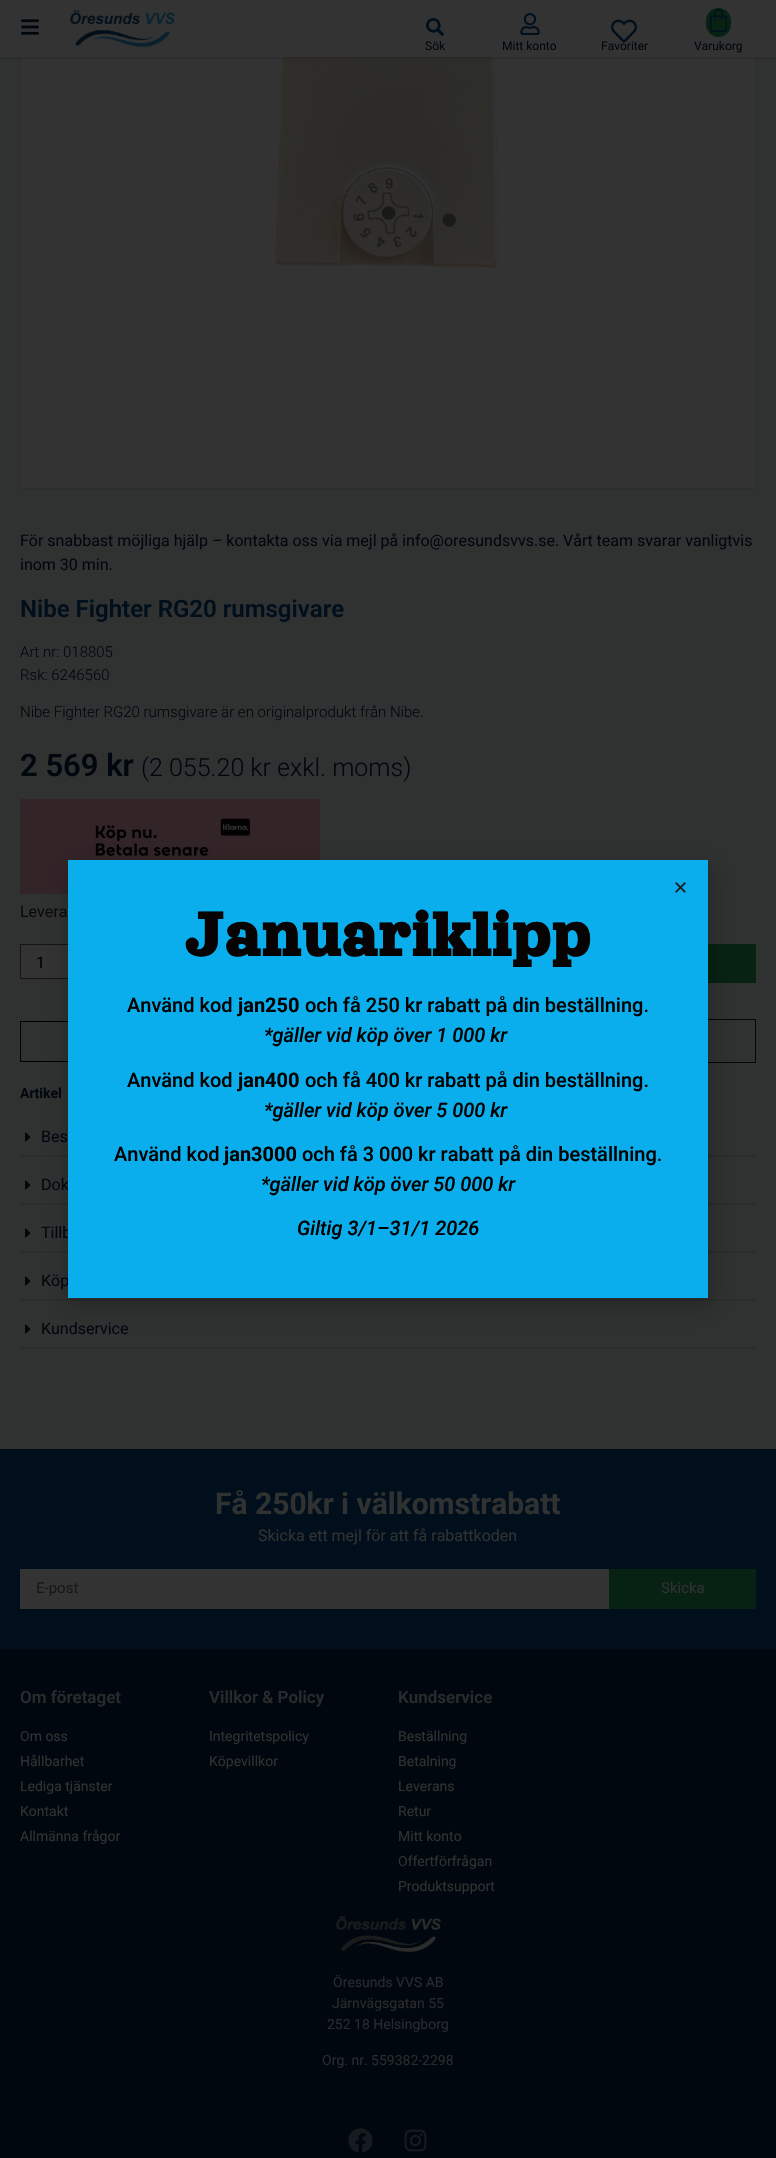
static SkFont makeFont(const char* family, int weight, float size, bool italic = false) {
  SkFontStyle style(weight, SkFontStyle::kNormal_Width,
    italic ? SkFontStyle::kItalic_Slant : SkFontStyle::kUpright_Slant);
  SkFont result(fontMgr->matchFamilyStyle(family, style), size);
  result.setSubpixel(true);
  return result;
}

static void text(SkCanvas* c, const char* s, float x, float y, const SkFont& font, SkColor color) {
  SkPaint ink(SkColor4f::FromColor(color));
  ink.setAntiAlias(true);
  c->drawString(s, x, y, font, ink);
}

static void spacedText(SkCanvas* c, const char* s, float x, float y, const SkFont& font, const SkPaint& ink, float letter, float word) {
  std::vector<SkGlyphID> glyphs(font.countText(s, strlen(s), SkTextEncoding::kUTF8));
  std::vector<float> xs(glyphs.size());
  font.textToGlyphs(s, strlen(s), SkTextEncoding::kUTF8, glyphs);
  font.getXPos(glyphs, xs, x);
  float extra = 0;
  for (size_t i = 0; i < glyphs.size(); i++) {
    xs[i] += extra;
    extra += letter + word * (glyphs[i] == font.unicharToGlyph(' '));
  }
  c->drawTextBlob(SkTextBlob::MakeFromPosHGlyphs(glyphs, xs, y, font), 0, 0, ink);
}

static void box(SkCanvas* c, float l, float t, float r, float b, SkColor color) {
  SkPaint ink(SkColor4f::FromColor(color));
  ink.setAntiAlias(true);
  c->drawRect(SkRect::MakeLTRB(l, t, r, b), ink);
}

static void roundBox(SkCanvas* c, float l, float t, float r, float b, float radius, SkColor color) {
  SkPaint ink(SkColor4f::FromColor(color));
  ink.setAntiAlias(true);
  c->drawRoundRect(SkRect::MakeLTRB(l, t, r, b), radius, radius, ink);
}

static void picture(SkCanvas* c, const char* path, float l, float t, float r, float b) {
  auto image = SkImages::DeferredFromEncodedData(SkData::MakeFromFileName(path));
  c->drawImageRect(image, SkRect::MakeLTRB(l, t, r, b), SkSamplingOptions());
}

void draw(SkCanvas* c) {
  SkPaint paint;
  paint.setAntiAlias(true);
  c->clear(0xff303131);
  paint.setStyle(SkPaint::kStroke_Style);
  paint.setStrokeWidth(1);
  paint.setColor(0xff2d2d2e);
  c->drawRect(SkRect::MakeLTRB(20.5f, -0.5f, 755.5f, 488.5f), paint);
  box(c, 21, 57, 755, 488, 0xff333333);
  picture(c, "img_07.png", 274, 57, 500, 270);
  paint.setStyle(SkPaint::kFill_Style);
  paint.setColor(0x40000000);
  paint.setMaskFilter(SkMaskFilter::MakeBlur(kNormal_SkBlurStyle, 2.5f));
  c->drawRect(SkRect::MakeLTRB(0, 0, 776, 57), paint);
  paint.setMaskFilter(nullptr);
  box(c, 0, 0, 776, 57, 0xff333333);
  picture(c, "img_01.png", 21, 19, 39, 35);
  picture(c, "img_02.png", 70, 10, 175, 47);
  picture(c, "img_03.png", 426, 18, 444, 36);
  SkFont face1 = makeFont("Roboto", 400, 12);
  text(c, "Sök", 425, 50, face1, 0xff00070e);
  picture(c, "img_04.png", 520, 13, 540, 35);
  text(c, "Mitt konto", 502, 50, face1, 0xff00070e);
  text(c, "Favoriter", 601, 50, face1, 0xff00070e);
  picture(c, "img_05.png", 611, 19, 637, 43);
  roundBox(c, 706, 8, 731, 37, 12.5f, 0xff072212);
  picture(c, "img_06.png", 710, 8, 727, 32);
  text(c, "Varukorg", 694, 50, face1, 0xff00070e);
  SkFont face2 = makeFont("Roboto", 400, 16);
  text(c, "För snabbast möjliga hjälp – kontakta oss via mejl på info@oresundsvvs.se. Vårt team svarar vanligtvis", 20, 546, face2, 0xff00070e);
  text(c, "inom 30 min.", 20, 570, face2, 0xff00070e);
  SkFont face3 = makeFont("Roboto", 600, 24);
  text(c, "Nibe Fighter RG20 rumsgivare", 20, 617, face3, 0xff000f1b);
  SkFont face4 = makeFont("Roboto", 300, 15);
  text(c, "Art nr: 018805", 20, 657, face4, 0xff00070e);
  text(c, "Rsk: 6246560", 20, 680, face4, 0xff00070e);
  text(c, "Nibe Fighter RG20 rumsgivare är en originalprodukt från Nibe.", 20, 717, face4, 0xff00070e);
  SkFont face5 = makeFont("Roboto", 600, 31);
  text(c, "2 569 kr", 20, 776, face5, 0xff00070e);
  SkFont face6 = makeFont("Roboto", 300, 25);
  text(c, "(2 055.20 kr exkl. moms)", 141, 776, face6, 0xff00070e);
  picture(c, "img_08.png", 20, 799, 320, 894);
  text(c, "Levera", 20, 917, face2, 0xff0a0a0a);
  box(c, 21, 945, 68, 978, 0xff333333);
  paint.setStyle(SkPaint::kStroke_Style);
  paint.setColor(0xff141414);
  c->drawRect(SkRect::MakeLTRB(20.5f, 944.5f, 77.5f, 978.5f), paint);
  text(c, "1", 36, 968, face2, 0xff000000);
  box(c, 708, 944, 756, 983, 0xff072212);
  paint.setColor(0xff000000);
  c->drawRect(SkRect::MakeLTRB(20.5f, 1021.5f, 377.5f, 1061.5f), paint);
  paint.setColor(0xff00070e);
  c->drawRect(SkRect::MakeLTRB(398.5f, 1019.5f, 755.5f, 1062.5f), paint);
  SkFont face7 = makeFont("Roboto", 700, 14);
  text(c, "Artikel", 20, 1098, face7, 0xff00070e);
  box(c, 20, 1156, 756, 1157, 0xff2c2c2c);
  box(c, 20, 1155, 756, 1156, 0xff2d2d2e);
  picture(c, "img_09.png", 25, 1132, 31, 1142);
  text(c, "Bes", 41, 1142, face2, 0xff00070e);
  box(c, 20, 1204, 756, 1205, 0xff2c2c2c);
  box(c, 20, 1203, 756, 1204, 0xff2d2d2e);
  picture(c, "img_09.png", 25, 1180, 31, 1190);
  text(c, "Dok", 41, 1190, face2, 0xff00070e);
  box(c, 20, 1252, 756, 1253, 0xff2c2c2c);
  box(c, 20, 1251, 756, 1252, 0xff2d2d2e);
  picture(c, "img_09.png", 25, 1228, 31, 1238);
  text(c, "Tillb", 41, 1238, face2, 0xff00070e);
  box(c, 20, 1300, 756, 1301, 0xff2c2c2c);
  box(c, 20, 1299, 756, 1300, 0xff2d2d2e);
  picture(c, "img_09.png", 25, 1276, 31, 1286);
  text(c, "Köp", 41, 1286, face2, 0xff00070e);
  box(c, 20, 1348, 756, 1349, 0xff2c2c2c);
  box(c, 20, 1347, 756, 1348, 0xff2d2d2e);
  picture(c, "img_09.png", 25, 1324, 31, 1334);
  text(c, "Kundservice", 41, 1334, face2, 0xff00070e);
  paint.setStyle(SkPaint::kFill_Style);
  paint.setColor(0x33000000);
  paint.setMaskFilter(SkMaskFilter::MakeBlur(kNormal_SkBlurStyle, 11.5f));
  c->drawRect(SkRect::MakeLTRB(67, 865, 713, 1309), paint);
  paint.setMaskFilter(nullptr);
  box(c, 68, 860, 708, 1298, 0xff0baeec);
  picture(c, "img_10.png", 675, 882, 686, 893);
  SkFont face8 = makeFont("Orelega One", 700, 70);
  paint.setColor(0xff070302);
  spacedText(c, "Januariklipp", 185, 956, face8, paint, 1, 0);
  SkFont face9 = makeFont("Roboto", 500, 20);
  text(c, "Använd kod", 127, 1012, face9, 0xff000000);
  SkFont face10 = makeFont("Roboto", 700, 20);
  text(c, "jan250", 238, 1012, face10, 0xff000000);
  text(c, "och få 250 kr rabatt på din beställning.", 305, 1012, face9, 0xff000000);
  SkFont face11 = makeFont("Roboto", 500, 20, true);
  text(c, "*gäller vid köp över 1 000 kr", 264, 1042, face11, 0xff000000);
  text(c, "Använd kod", 127, 1087, face9, 0xff000000);
  text(c, "jan400", 238, 1087, face10, 0xff000000);
  text(c, "och få 400 kr rabatt på din beställning.", 305, 1087, face9, 0xff000000);
  text(c, "*gäller vid köp över 5 000 kr", 264, 1117, face11, 0xff000000);
  text(c, "Använd kod", 114, 1161, face9, 0xff000000);
  text(c, "jan3000", 224, 1161, face10, 0xff000000);
  text(c, "och få 3 000 kr rabatt på din beställning.", 302, 1161, face9, 0xff000000);
  text(c, "*gäller vid köp över 50 000 kr", 261, 1191, face11, 0xff000000);
  text(c, "Giltig 3/1–31/1 2026", 297, 1235, face11, 0xff000000);
  box(c, 0, 1449, 776, 1649, 0xff000f1b);
  SkFont face12 = makeFont("Roboto", 700, 30);
  text(c, "Få 250kr i välkomstrabatt", 215, 1514, face12, 0xff303131);
  text(c, "Skicka ett mejl för att få rabattkoden", 258, 1541, face2, 0xff303131);
  box(c, 20, 1569, 609, 1609, 0xff333333);
  SkFont face13 = makeFont("Roboto", 400, 15);
  text(c, "E-post", 36, 1593, face13, 0xff181819);
  box(c, 609, 1569, 756, 1609, 0xff072212);
  text(c, "Skicka", 661, 1593, face13, 0xff303131);
  box(c, 0, 1649, 776, 2158, 0xff00070e);
  SkFont face14 = makeFont("Roboto", 600, 17);
  text(c, "Om företaget", 20, 1703, face14, 0xff292a2c);
  SkFont face15 = makeFont("Roboto", 400, 14);
  text(c, "Om oss", 20, 1741, face15, 0xff303131);
  text(c, "Hållbarhet", 20, 1766, face15, 0xff303131);
  text(c, "Lediga tjänster", 20, 1791, face15, 0xff303131);
  text(c, "Kontakt", 20, 1816, face15, 0xff303131);
  text(c, "Allmänna frågor", 20, 1841, face15, 0xff303131);
  text(c, "Villkor & Policy", 209, 1703, face14, 0xff292a2c);
  text(c, "Integritetspolicy", 209, 1741, face15, 0xff303131);
  text(c, "Köpevillkor", 209, 1766, face15, 0xff303131);
  text(c, "Kundservice", 398, 1703, face14, 0xff292a2c);
  text(c, "Beställning", 398, 1741, face15, 0xff303131);
  text(c, "Betalning", 398, 1766, face15, 0xff303131);
  text(c, "Leverans", 398, 1791, face15, 0xff303131);
  text(c, "Retur", 398, 1816, face15, 0xff303131);
  text(c, "Mitt konto", 398, 1841, face15, 0xff303131);
  text(c, "Offertförfrågan", 398, 1866, face15, 0xff303131);
  text(c, "Produktsupport", 398, 1891, face15, 0xff303131);
  picture(c, "img_11.png", 336, 1916, 441, 1952);
  text(c, "Öresunds VVS AB", 333, 1987, face15, 0xff292a2c);
  text(c, "Järnvägsgatan 55", 332, 2008, face15, 0xff292a2c);
  text(c, "252 18 Helsingborg", 327, 2029, face15, 0xff292a2c);
  text(c, "Org. nr. 559382-2298", 322, 2065, face15, 0xff292a2c);
  picture(c, "img_12.png", 348, 2128, 373, 2153);
  picture(c, "img_13.png", 404, 2129, 427, 2152);
}
